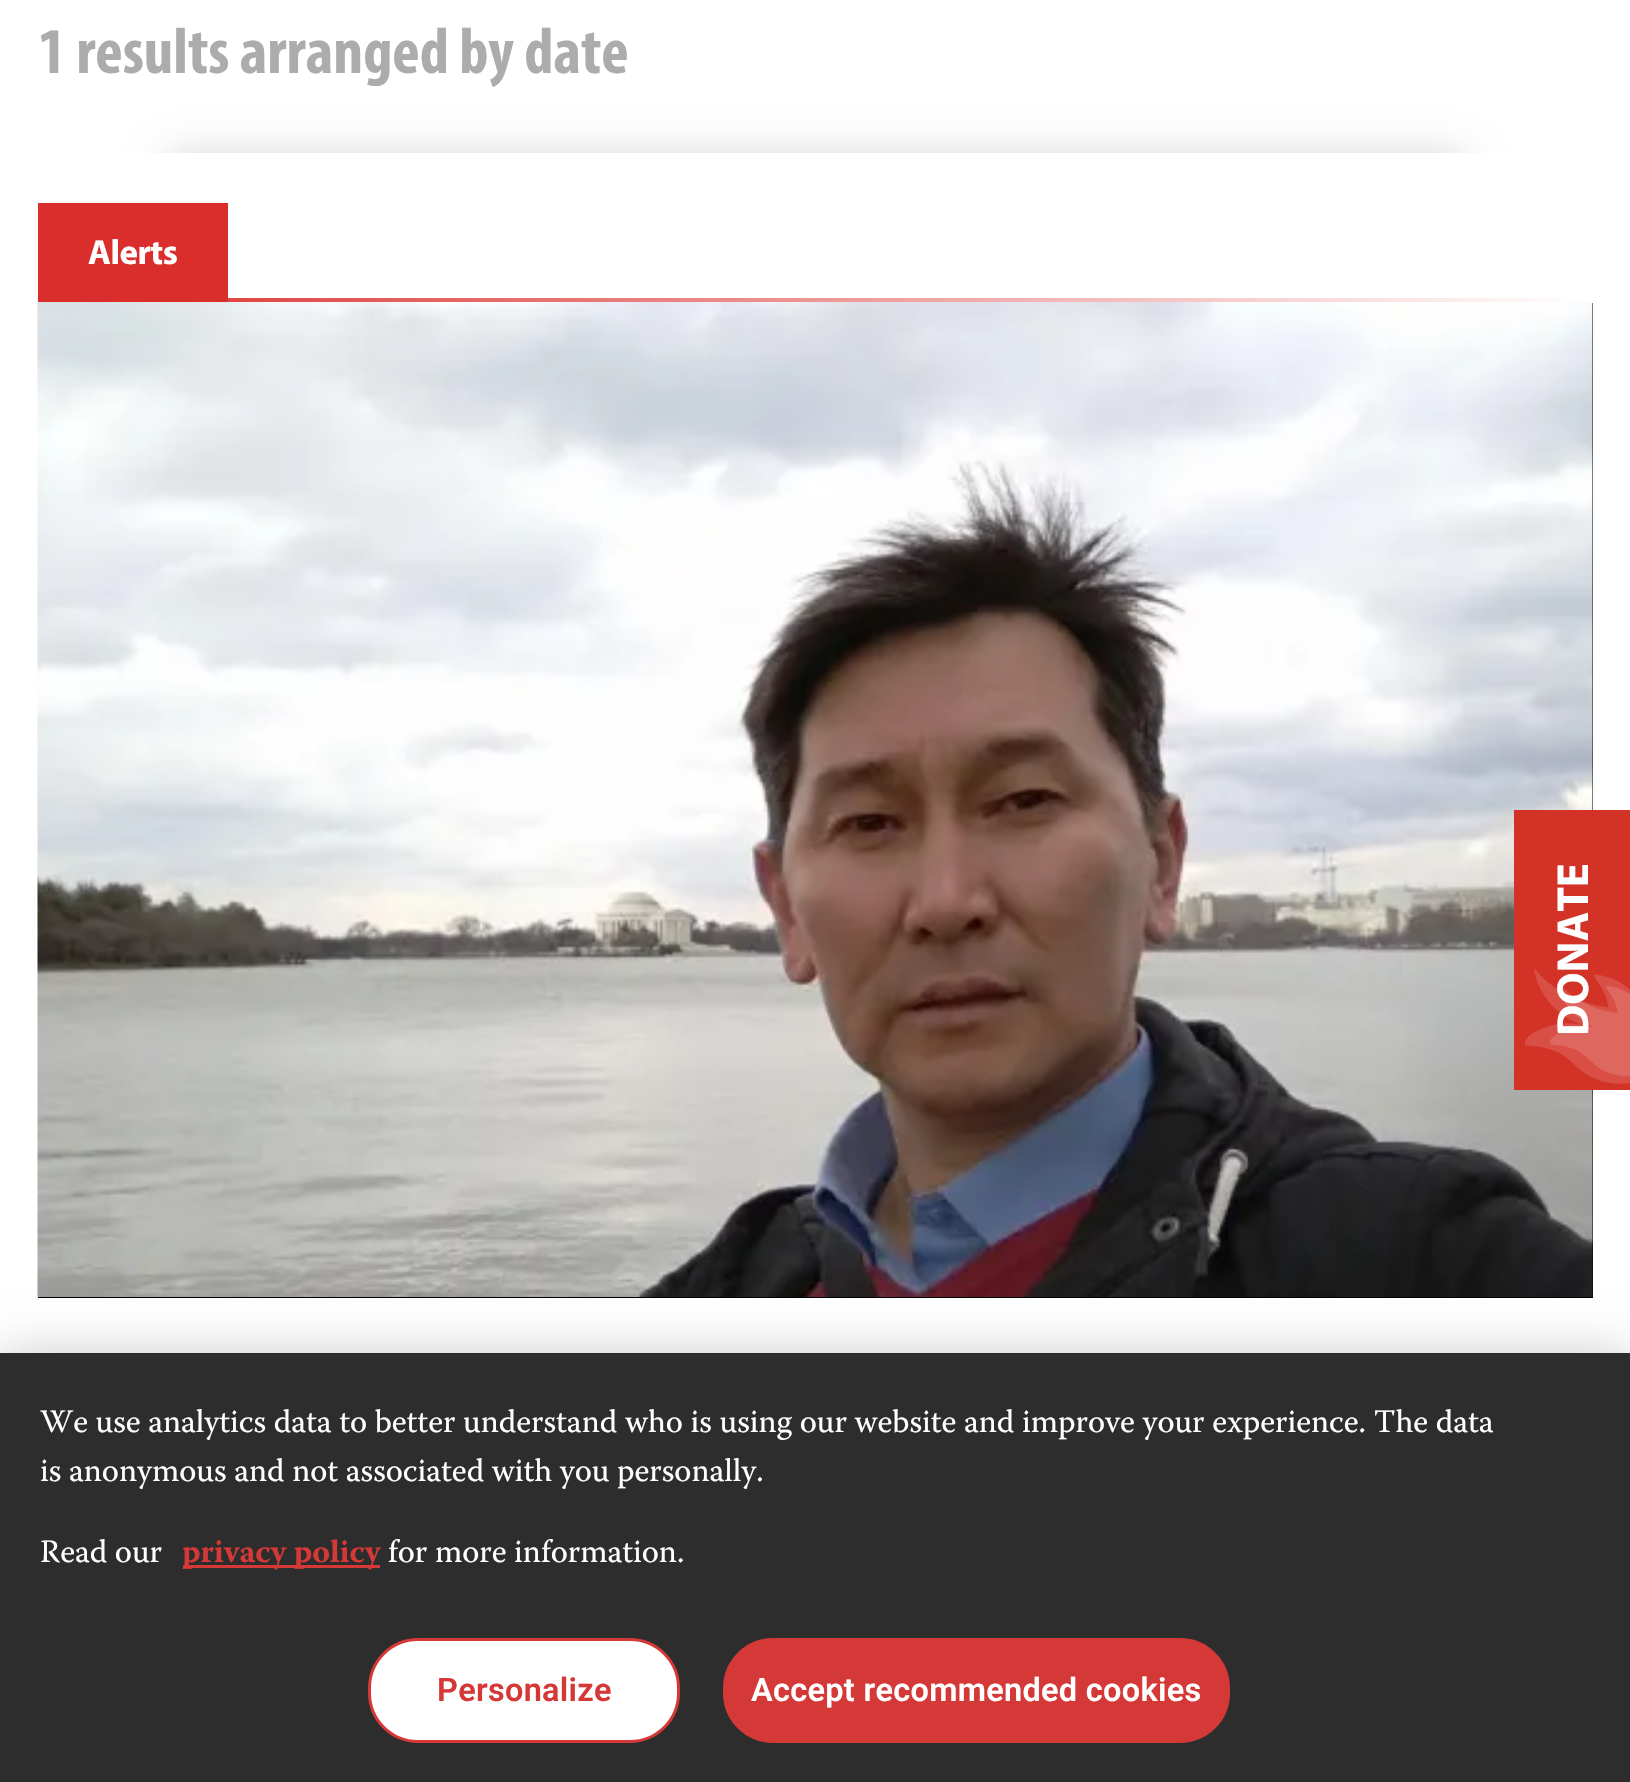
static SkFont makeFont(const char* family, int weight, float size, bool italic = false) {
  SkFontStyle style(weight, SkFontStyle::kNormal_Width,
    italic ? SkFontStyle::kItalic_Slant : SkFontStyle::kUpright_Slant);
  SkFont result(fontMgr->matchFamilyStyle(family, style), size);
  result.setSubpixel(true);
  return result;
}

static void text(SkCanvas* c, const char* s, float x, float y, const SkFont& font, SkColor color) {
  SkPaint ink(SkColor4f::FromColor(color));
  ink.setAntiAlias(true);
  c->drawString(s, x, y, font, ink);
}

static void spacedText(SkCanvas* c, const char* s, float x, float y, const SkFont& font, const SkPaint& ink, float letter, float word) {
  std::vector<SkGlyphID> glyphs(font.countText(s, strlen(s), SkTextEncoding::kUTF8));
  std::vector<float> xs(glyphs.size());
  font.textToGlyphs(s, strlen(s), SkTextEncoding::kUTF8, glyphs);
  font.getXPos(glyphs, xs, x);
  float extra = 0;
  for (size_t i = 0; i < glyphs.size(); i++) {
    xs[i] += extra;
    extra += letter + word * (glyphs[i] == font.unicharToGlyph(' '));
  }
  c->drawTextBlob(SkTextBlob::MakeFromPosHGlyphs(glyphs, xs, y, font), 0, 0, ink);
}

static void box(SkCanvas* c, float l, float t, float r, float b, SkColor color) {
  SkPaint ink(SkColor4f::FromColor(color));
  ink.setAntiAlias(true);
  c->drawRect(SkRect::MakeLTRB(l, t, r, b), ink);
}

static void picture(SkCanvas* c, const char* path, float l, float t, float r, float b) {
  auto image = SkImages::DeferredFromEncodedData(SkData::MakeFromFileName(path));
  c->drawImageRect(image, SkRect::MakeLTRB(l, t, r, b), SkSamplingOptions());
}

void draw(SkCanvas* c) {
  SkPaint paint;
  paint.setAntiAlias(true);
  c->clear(0xffffffff);
  SkFont face1 = makeFont("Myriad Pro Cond", 700, 65.25f);
  text(c, "1 results arranged by date", 38, 73, face1, 0xffacacac);
  c->save();
  c->clipRect(SkRect::MakeLTRB(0, 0, 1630, 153));
  paint.setColor(0x26000000);
  paint.setMaskFilter(SkMaskFilter::MakeBlur(kNormal_SkBlurStyle, 19));
  c->drawRoundRect(SkRect::MakeLTRB(163, 153, 1468, 203), 25, 25, paint);
  paint.setMaskFilter(nullptr);
  c->restore();
  box(c, 38, 203, 228, 302, 0xffda2e2c);
  SkFont face2 = makeFont("Myriad", 700, 35);
  paint.setColor(0xffffffff);
  spacedText(c, "Alerts", 88, 264, face2, paint, -0.5f, 0);
  {
    const SkColor colors[] = {0xffda2e2c, 0x00da2e2c};
    const float stops[] = {0, 1};
    const SkPoint ends[] = {{38, 300}, {1593, 300}};
    paint.setShader(SkGradientShader::MakeLinear(ends, colors, stops, 2, SkTileMode::kClamp));
    paint.setAlpha(255);
  }
  c->drawRect(SkRect::MakeLTRB(228, 298, 1559, 302), paint);
  box(c, 38, 303, 1593, 1298, 0xff000000);
  picture(c, "img_01.png", 37, 302, 1593, 1297);
  box(c, 1514, 810, 1630, 1090, 0xffd33227);
  picture(c, "img_02.png", 1525, 970, 1630, 1084);
  picture(c, "img_03.png", 1550, 983, 1630, 1077);
  SkFont face3 = makeFont("Myriad", 700, 45);
  c->save();
  c->rotate(-90, 1588, 1036);
  text(c, "DONATE", 1588, 1036, face3, 0xffffffff);
  c->restore();
  paint.setShader(nullptr);
  paint.setColor(0x33000000);
  paint.setMaskFilter(SkMaskFilter::MakeBlur(kNormal_SkBlurStyle, 22.5f));
  c->drawRect(SkRect::MakeLTRB(0, 1353, 1630, 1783), paint);
  paint.setMaskFilter(nullptr);
  box(c, 0, 1353, 1630, 1782, 0xff2d2d2d);
  SkFont face4 = makeFont("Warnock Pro", 400, 32.5f);
  text(c, "We use analytics data to better understand who is using our website and improve your experience. The data", 40, 1432, face4, 0xffffffff);
  text(c, "is anonymous and not associated with you personally.", 40, 1481, face4, 0xffffffff);
  text(c, "Read our", 40, 1562, face4, 0xffffffff);
  box(c, 183, 1565, 380, 1568, 0xffd43837);
  SkFont face5 = makeFont("Warnock Pro", 700, 32.5f);
  text(c, "privacy policy", 182, 1562, face5, 0xffd43837);
  text(c, "for more information.", 388, 1562, face4, 0xffffffff);
  paint.setColor(0xffffffff);
  c->drawRoundRect(SkRect::MakeLTRB(369.5f, 1639.5f, 678.5f, 1741.5f), 48.5f, 48.5f, paint);
  paint.setStyle(SkPaint::kStroke_Style);
  paint.setStrokeWidth(3);
  paint.setColor(0xffd43837);
  c->drawRoundRect(SkRect::MakeLTRB(369.5f, 1639.5f, 678.5f, 1741.5f), 48.5f, 48.5f, paint);
  SkFont face6 = makeFont("Roboto", 600, 32.5f);
  paint.setStyle(SkPaint::kFill_Style);
  spacedText(c, "Personalize", 437, 1701, face6, paint, 0.3f, 0);
  c->drawRoundRect(SkRect::MakeLTRB(724.5f, 1639.5f, 1228.5f, 1741.5f), 48.5f, 48.5f, paint);
  paint.setStyle(SkPaint::kStroke_Style);
  c->drawRoundRect(SkRect::MakeLTRB(724.5f, 1639.5f, 1228.5f, 1741.5f), 48.5f, 48.5f, paint);
  paint.setStyle(SkPaint::kFill_Style);
  paint.setColor(0xffffffff);
  spacedText(c, "Accept recommended cookies", 751, 1701, face6, paint, 0.3f, 0);
}
